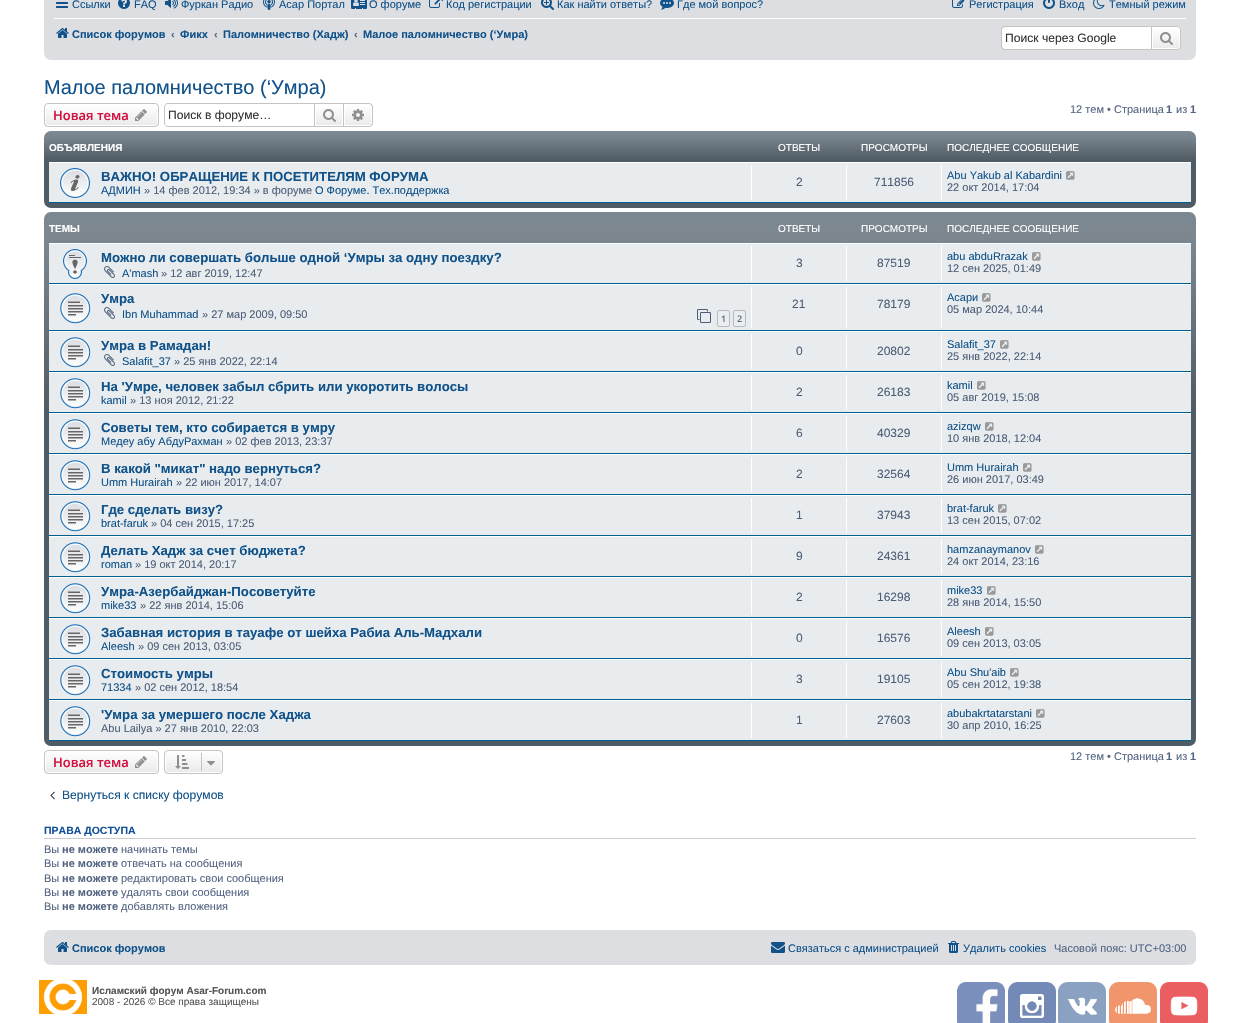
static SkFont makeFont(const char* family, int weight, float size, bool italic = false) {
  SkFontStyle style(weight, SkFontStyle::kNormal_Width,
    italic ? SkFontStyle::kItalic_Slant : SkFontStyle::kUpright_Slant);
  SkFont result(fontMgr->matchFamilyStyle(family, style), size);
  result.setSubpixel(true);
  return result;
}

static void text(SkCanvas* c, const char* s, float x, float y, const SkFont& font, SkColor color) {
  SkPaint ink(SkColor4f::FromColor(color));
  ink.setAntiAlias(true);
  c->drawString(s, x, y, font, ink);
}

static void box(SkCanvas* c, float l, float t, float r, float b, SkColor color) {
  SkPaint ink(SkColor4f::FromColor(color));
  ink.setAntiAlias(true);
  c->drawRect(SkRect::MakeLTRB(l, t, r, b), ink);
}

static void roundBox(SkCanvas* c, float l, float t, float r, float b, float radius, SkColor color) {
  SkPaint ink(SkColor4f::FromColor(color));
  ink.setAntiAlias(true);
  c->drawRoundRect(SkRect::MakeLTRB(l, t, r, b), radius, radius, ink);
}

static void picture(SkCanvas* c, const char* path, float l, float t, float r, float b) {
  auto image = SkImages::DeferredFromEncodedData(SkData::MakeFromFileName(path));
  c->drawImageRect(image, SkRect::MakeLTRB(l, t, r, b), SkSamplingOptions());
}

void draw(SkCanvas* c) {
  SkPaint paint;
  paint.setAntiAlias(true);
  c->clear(0xffffffff);
  roundBox(c, 44, -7, 1196, 60, 7, 0xffdcdee2);
  picture(c, "img_01.png", 56, 2, 68, 8);
  SkFont face1 = makeFont("Liberation Sans", 400, 11);
  text(c, "Ссылки", 72, 8, face1, 0xff105289);
  picture(c, "img_02.png", 118, 0, 130, 9);
  text(c, "FAQ", 134, 8, face1, 0xff105289);
  picture(c, "img_03.png", 165, 0, 178, 9);
  text(c, "Фуркан Радио", 181, 8, face1, 0xff105289);
  picture(c, "img_04.png", 263, 0, 275, 10);
  text(c, "Асар Портал", 279, 8, face1, 0xff105289);
  picture(c, "img_05.png", 351, 0, 367, 9);
  text(c, "О форуме", 369, 8, face1, 0xff105289);
  picture(c, "img_06.png", 429, 0, 443, 8);
  text(c, "Код регистрации", 446, 8, face1, 0xff105289);
  picture(c, "img_07.png", 541, 0, 554, 10);
  text(c, "Как найти ответы?", 557, 8, face1, 0xff105289);
  picture(c, "img_08.png", 660, 0, 674, 10);
  text(c, "Где мой вопрос?", 677, 8, face1, 0xff105289);
  picture(c, "img_09.png", 952, 0, 966, 8);
  text(c, "Регистрация", 969, 8, face1, 0xff105289);
  picture(c, "img_10.png", 1043, 0, 1055, 9);
  text(c, "Вход", 1059, 8, face1, 0xff105289);
  picture(c, "img_11.png", 1093, 0, 1105, 9);
  text(c, "Темный режим", 1109, 8, face1, 0xff105289);
  box(c, 54, 18, 1186, 19, 0xffffffff);
  picture(c, "img_12.png", 56, 28, 69, 38);
  SkFont face2 = makeFont("Liberation Sans", 700, 11);
  text(c, "Список форумов", 72, 38, face2, 0xff105289);
  text(c, "‹", 171, 38, face2, 0xff536482);
  text(c, "Фикх", 180, 38, face2, 0xff105289);
  text(c, "‹", 214, 38, face2, 0xff536482);
  text(c, "Паломничество (Хадж)", 223, 38, face2, 0xff105289);
  text(c, "‹", 354, 38, face2, 0xff536482);
  text(c, "Малое паломничество (‘Умра)", 363, 38, face2, 0xff105289);
  paint.setColor(0xffffffff);
  c->drawPath(SkPathBuilder().moveTo(1005, 27).lineTo(1151, 27).lineTo(1151, 49).lineTo(1005, 49).cubicTo(1003.5f, 49, 1002, 47.5f, 1002, 46).lineTo(1002, 30).cubicTo(1002, 28.5f, 1003.5f, 27, 1005, 27).close().detach(), paint);
  paint.setColor(0xffc7c3bf);
  c->drawPath(SkPathBuilder(SkPathFillType::kEvenOdd).moveTo(1005, 26).lineTo(1151, 26).lineTo(1151, 50).lineTo(1005, 50).cubicTo(1003, 50, 1001, 48, 1001, 46).lineTo(1001, 30).cubicTo(1001, 28, 1003, 26, 1005, 26).close().moveTo(1005, 27).lineTo(1151, 27).lineTo(1151, 49).lineTo(1005, 49).cubicTo(1003, 49, 1002, 48, 1002, 46).lineTo(1002, 30).cubicTo(1002, 28, 1003, 27, 1005, 27).close().detach(), paint);
  SkFont face3 = makeFont("Liberation Sans", 400, 12.1f);
  text(c, "Поиск через Google", 1005, 42, face3, 0xff333333);
  c->save();
  c->clipPath(SkPathBuilder().moveTo(1151, 26).lineTo(1177, 26).cubicTo(1179, 26, 1181, 28, 1181, 30).lineTo(1181, 46).cubicTo(1181, 48, 1179, 50, 1177, 50).lineTo(1151, 50).close().detach(), true);
  {
    const SkColor colors[] = {0xffffffff, 0xffe9e9e9};
    const float stops[] = {0, 1};
    const SkPoint ends[] = {{1166, 27}, {1166, 49}};
    paint.setShader(SkGradientShader::MakeLinear(ends, colors, stops, 2, SkTileMode::kClamp));
    paint.setAlpha(255);
  }
  c->drawRect(SkRect::MakeLTRB(1153, 27, 1181, 49), paint);
  c->restore();
  paint.setStyle(SkPaint::kStroke_Style);
  paint.setStrokeWidth(1);
  paint.setShader(nullptr);
  paint.setColor(0xffffffff);
  c->drawPath(SkPathBuilder().moveTo(1152.5f, 27.5f).lineTo(1177, 27.5f).cubicTo(1178.5f, 27.5f, 1179.5f, 28.5f, 1179.5f, 30).lineTo(1179.5f, 46).cubicTo(1179.5f, 47.5f, 1178.5f, 48.5f, 1177, 48.5f).lineTo(1152.5f, 48.5f).close().detach(), paint);
  paint.setColor(0xffc7c3bf);
  c->drawPath(SkPathBuilder().moveTo(1151.5f, 26.5f).lineTo(1177, 26.5f).cubicTo(1179, 26.5f, 1180.5f, 28, 1180.5f, 30).lineTo(1180.5f, 46).cubicTo(1180.5f, 48, 1179, 49.5f, 1177, 49.5f).lineTo(1151.5f, 49.5f).close().detach(), paint);
  picture(c, "img_13.png", 1160, 32, 1173, 45);
  SkFont face4 = makeFont("Liberation Sans", 400, 20);
  text(c, "Малое паломничество (‘Умра)", 44, 94, face4, 0xff105289);
  c->save();
  c->clipPath(SkPathBuilder().moveTo(48, 103).lineTo(155, 103).cubicTo(157, 103, 159, 105, 159, 107).lineTo(159, 123).cubicTo(159, 125, 157, 127, 155, 127).lineTo(48, 127).cubicTo(46, 127, 44, 125, 44, 123).lineTo(44, 107).cubicTo(44, 105, 46, 103, 48, 103).close().detach(), true);
  paint.setStyle(SkPaint::kFill_Style);
  {
    const SkColor colors[] = {0xffffffff, 0xffe9e9e9};
    const float stops[] = {0, 1};
    const SkPoint ends[] = {{102, 104}, {102, 126}};
    paint.setShader(SkGradientShader::MakeLinear(ends, colors, stops, 2, SkTileMode::kClamp));
    paint.setAlpha(255);
  }
  c->drawRect(SkRect::MakeLTRB(44, 104, 159, 126), paint);
  c->restore();
  paint.setStyle(SkPaint::kStroke_Style);
  paint.setShader(nullptr);
  paint.setColor(0xffffffff);
  c->drawRoundRect(SkRect::MakeLTRB(45.5f, 104.5f, 157.5f, 125.5f), 2.5f, 2.5f, paint);
  paint.setColor(0xffc7c3bf);
  c->drawRoundRect(SkRect::MakeLTRB(44.5f, 103.5f, 158.5f, 126.5f), 3.5f, 3.5f, paint);
  SkFont face5 = makeFont("Open Sans", 600, 13);
  text(c, "Новая тема", 53, 120, face5, 0xffd31141);
  picture(c, "img_14.png", 135, 109, 147, 121);
  paint.setStyle(SkPaint::kFill_Style);
  c->drawPath(SkPathBuilder(SkPathFillType::kEvenOdd).moveTo(168, 103).lineTo(314, 103).lineTo(314, 127).lineTo(168, 127).cubicTo(166, 127, 164, 125, 164, 123).lineTo(164, 107).cubicTo(164, 105, 166, 103, 168, 103).close().moveTo(168, 104).lineTo(314, 104).lineTo(314, 126).lineTo(168, 126).cubicTo(166, 126, 165, 125, 165, 123).lineTo(165, 107).cubicTo(165, 105, 166, 104, 168, 104).close().detach(), paint);
  text(c, "Поиск в форуме…", 168, 119, face3, 0xff333333);
  {
    const SkColor colors[] = {0xffffffff, 0xffe9e9e9};
    const float stops[] = {0, 1};
    const SkPoint ends[] = {{329, 104}, {329, 126}};
    paint.setShader(SkGradientShader::MakeLinear(ends, colors, stops, 2, SkTileMode::kClamp));
    paint.setAlpha(255);
  }
  c->drawRect(SkRect::MakeLTRB(316, 107, 342, 125), paint);
  paint.setStyle(SkPaint::kStroke_Style);
  paint.setShader(nullptr);
  paint.setColor(0xffc7c3bf);
  c->drawRect(SkRect::MakeLTRB(314.5f, 103.5f, 343.5f, 126.5f), paint);
  picture(c, "img_13.png", 323, 109, 336, 122);
  paint.setStyle(SkPaint::kFill_Style);
  {
    const SkColor colors[] = {0xffffffff, 0xffe9e9e9};
    const float stops[] = {0, 1};
    const SkPoint ends[] = {{358, 104}, {358, 126}};
    paint.setShader(SkGradientShader::MakeLinear(ends, colors, stops, 2, SkTileMode::kClamp));
    paint.setAlpha(255);
  }
  c->drawPath(SkPathBuilder().moveTo(344.5f, 104.5f).lineTo(369, 104.5f).cubicTo(370.5f, 104.5f, 371.5f, 105.5f, 371.5f, 107).lineTo(371.5f, 123).cubicTo(371.5f, 124.5f, 370.5f, 125.5f, 369, 125.5f).lineTo(344.5f, 125.5f).close().detach(), paint);
  paint.setStyle(SkPaint::kStroke_Style);
  paint.setShader(nullptr);
  paint.setColor(0xffffffff);
  c->drawPath(SkPathBuilder().moveTo(344.5f, 104.5f).lineTo(369, 104.5f).cubicTo(370.5f, 104.5f, 371.5f, 105.5f, 371.5f, 107).lineTo(371.5f, 123).cubicTo(371.5f, 124.5f, 370.5f, 125.5f, 369, 125.5f).lineTo(344.5f, 125.5f).close().detach(), paint);
  paint.setStyle(SkPaint::kFill_Style);
  paint.setColor(0xffc7c3bf);
  c->drawPath(SkPathBuilder(SkPathFillType::kEvenOdd).moveTo(344, 103).lineTo(369, 103).cubicTo(371, 103, 373, 105, 373, 107).lineTo(373, 123).cubicTo(373, 125, 371, 127, 369, 127).lineTo(344, 127).close().moveTo(344, 104).lineTo(369, 104).cubicTo(370.5f, 104, 372, 105.5f, 372, 107).lineTo(372, 123).cubicTo(372, 124.5f, 370.5f, 126, 369, 126).lineTo(344, 126).close().detach(), paint);
  picture(c, "img_15.png", 352, 109, 364, 121);
  text(c, "12 тем • Страница", 1070, 113, face1, 0xff536482);
  text(c, "1", 1166, 113, face2, 0xff536482);
  text(c, "из", 1176, 113, face1, 0xff536482);
  text(c, "1", 1190, 113, face2, 0xff536482);
  {
    const SkColor colors[] = {0xff7c8891, 0xff7c8790, 0xff76828b, 0xff5b666f, 0xff505c65, 0xff505c65};
    const float stops[] = {0, 0.04f, 0.1f, 0.29f, 0.38f, 1};
    const SkPoint ends[] = {{620, 131}, {620, 208}};
    paint.setShader(SkGradientShader::MakeLinear(ends, colors, stops, 6, SkTileMode::kClamp));
    paint.setAlpha(255);
  }
  c->drawRoundRect(SkRect::MakeLTRB(44, 131, 1196, 208), 7, 7, paint);
  SkFont face6 = makeFont("Liberation Sans", 700, 10);
  text(c, "ОБЪЯВЛЕНИЯ", 49, 151, face6, 0xffffffff);
  SkFont face7 = makeFont("Liberation Sans", 400, 10);
  text(c, "ОТВЕТЫ", 778, 151, face7, 0xffffffff);
  text(c, "ПРОСМОТРЫ", 861, 151, face7, 0xffffffff);
  text(c, "ПОСЛЕДНЕЕ СООБЩЕНИЕ", 947, 151, face7, 0xffffffff);
  box(c, 49, 163, 1191, 202, 0xffe8ecee);
  box(c, 49, 162, 1191, 163, 0xffffffff);
  box(c, 49, 202, 1191, 203, 0xff00608f);
  picture(c, "img_16.png", 60, 168, 90, 198);
  SkFont face8 = makeFont("Liberation Sans", 700, 13.2f);
  text(c, "ВАЖНО! ОБРАЩЕНИЕ К ПОСЕТИТЕЛЯМ ФОРУМА", 101, 181, face8, 0xff105289);
  text(c, "АДМИН", 101, 194, face1, 0xff105289);
  text(c, "» 14 фев 2012, 19:34 » в форуме", 144, 194, face1, 0xff4c5d77);
  text(c, "О Форуме. Тех.поддержка", 315, 194, face1, 0xff105289);
  box(c, 751, 165, 752, 200, 0xffffffff);
  SkFont face9 = makeFont("Liberation Sans", 400, 12);
  text(c, "2", 796, 186, face9, 0xff4c5d77);
  box(c, 846, 165, 847, 200, 0xffffffff);
  text(c, "711856", 874, 186, face9, 0xff4c5d77);
  box(c, 941, 165, 942, 200, 0xffffffff);
  text(c, "Abu Yakub al Kabardini", 947, 179, face1, 0xff105289);
  picture(c, "img_17.png", 1066, 171, 1075, 180);
  text(c, "22 окт 2014, 17:04", 947, 191, face1, 0xff4c5d77);
  {
    const SkColor colors[] = {0xff7c8891, 0xff7c8790, 0xff76828b, 0xff5b666f, 0xff505c65, 0xff505c65};
    const float stops[] = {0, 0.04f, 0.1f, 0.29f, 0.38f, 1};
    const SkPoint ends[] = {{620, 212}, {620, 746}};
    paint.setShader(SkGradientShader::MakeLinear(ends, colors, stops, 6, SkTileMode::kClamp));
    paint.setAlpha(255);
  }
  c->drawRoundRect(SkRect::MakeLTRB(44, 212, 1196, 746), 7, 7, paint);
  text(c, "ТЕМЫ", 49, 232, face6, 0xffffffff);
  text(c, "ОТВЕТЫ", 778, 232, face7, 0xffffffff);
  text(c, "ПРОСМОТРЫ", 861, 232, face7, 0xffffffff);
  text(c, "ПОСЛЕДНЕЕ СООБЩЕНИЕ", 947, 232, face7, 0xffffffff);
  box(c, 49, 244, 1191, 283, 0xffe8ecee);
  box(c, 49, 243, 1191, 244, 0xffffffff);
  box(c, 49, 283, 1191, 284, 0xff00608f);
  picture(c, "img_18.png", 63, 249, 87, 279);
  text(c, "Можно ли совершать больше одной ‘Умры за одну поездку?", 101, 262, face8, 0xff105289);
  picture(c, "img_19.png", 104, 266, 115, 278);
  text(c, "A'mash", 122, 277, face1, 0xff105289);
  text(c, "» 12 авг 2019, 12:47", 161, 277, face1, 0xff4c5d77);
  box(c, 751, 246, 752, 281, 0xffffffff);
  text(c, "3", 796, 267, face9, 0xff4c5d77);
  box(c, 846, 246, 847, 281, 0xffffffff);
  text(c, "87519", 877, 267, face9, 0xff4c5d77);
  box(c, 941, 246, 942, 281, 0xffffffff);
  text(c, "abu abduRrazak", 947, 260, face1, 0xff105289);
  picture(c, "img_17.png", 1032, 252, 1041, 261);
  text(c, "12 сен 2025, 01:49", 947, 272, face1, 0xff4c5d77);
  box(c, 49, 285, 1191, 330, 0xffe8ecee);
  box(c, 49, 284, 1191, 285, 0xffffffff);
  box(c, 49, 330, 1191, 331, 0xff00608f);
  picture(c, "img_20.png", 60, 293, 91, 324);
  text(c, "Умра", 101, 303, face8, 0xff105289);
  picture(c, "img_19.png", 104, 307, 115, 319);
  text(c, "Ibn Muhammad", 122, 318, face1, 0xff105289);
  text(c, "» 27 мар 2009, 09:50", 202, 318, face1, 0xff4c5d77);
  picture(c, "img_21.png", 697, 309, 711, 323);
  paint.setShader(nullptr);
  paint.setColor(0xffecedee);
  c->drawRoundRect(SkRect::MakeLTRB(717.5f, 310.5f, 729.5f, 326.5f), 1.5f, 1.5f, paint);
  paint.setStyle(SkPaint::kStroke_Style);
  paint.setColor(0xffb4bac0);
  c->drawRoundRect(SkRect::MakeLTRB(717.5f, 310.5f, 729.5f, 326.5f), 1.5f, 1.5f, paint);
  SkFont face10 = makeFont("Open Sans", 600, 9);
  text(c, "1", 721, 322, face10, 0xff5c758c);
  paint.setStyle(SkPaint::kFill_Style);
  paint.setColor(0xffecedee);
  c->drawRoundRect(SkRect::MakeLTRB(733.5f, 310.5f, 745.5f, 326.5f), 1.5f, 1.5f, paint);
  paint.setStyle(SkPaint::kStroke_Style);
  paint.setColor(0xffb4bac0);
  c->drawRoundRect(SkRect::MakeLTRB(733.5f, 310.5f, 745.5f, 326.5f), 1.5f, 1.5f, paint);
  text(c, "2", 737, 322, face10, 0xff5c758c);
  box(c, 751, 287, 752, 328, 0xffffffff);
  text(c, "21", 792, 308, face9, 0xff4c5d77);
  box(c, 846, 287, 847, 328, 0xffffffff);
  text(c, "78179", 877, 308, face9, 0xff4c5d77);
  box(c, 941, 287, 942, 328, 0xffffffff);
  text(c, "Асари", 947, 301, face1, 0xff105289);
  picture(c, "img_17.png", 982, 293, 991, 302);
  text(c, "05 мар 2024, 10:44", 947, 313, face1, 0xff4c5d77);
  box(c, 49, 332, 1191, 371, 0xffe8ecee);
  box(c, 49, 331, 1191, 332, 0xffffffff);
  box(c, 49, 371, 1191, 372, 0xff00608f);
  picture(c, "img_20.png", 60, 337, 91, 368);
  text(c, "Умра в Рамадан!", 101, 350, face8, 0xff105289);
  picture(c, "img_19.png", 104, 354, 115, 366);
  text(c, "Salafit_37", 122, 365, face1, 0xff105289);
  text(c, "» 25 янв 2022, 22:14", 174, 365, face1, 0xff4c5d77);
  box(c, 751, 334, 752, 369, 0xffffffff);
  text(c, "0", 796, 355, face9, 0xff4c5d77);
  box(c, 846, 334, 847, 369, 0xffffffff);
  text(c, "20802", 877, 355, face9, 0xff4c5d77);
  box(c, 941, 334, 942, 369, 0xffffffff);
  text(c, "Salafit_37", 947, 348, face1, 0xff105289);
  picture(c, "img_17.png", 1000, 340, 1009, 349);
  text(c, "25 янв 2022, 22:14", 947, 360, face1, 0xff4c5d77);
  box(c, 49, 373, 1191, 412, 0xffe8ecee);
  box(c, 49, 372, 1191, 373, 0xffffffff);
  box(c, 49, 412, 1191, 413, 0xff00608f);
  picture(c, "img_20.png", 60, 378, 91, 409);
  text(c, "На 'Умре, человек забыл сбрить или укоротить волосы", 101, 391, face8, 0xff105289);
  text(c, "kamil", 101, 404, face1, 0xff105289);
  text(c, "» 13 ноя 2012, 21:22", 130, 404, face1, 0xff4c5d77);
  box(c, 751, 375, 752, 410, 0xffffffff);
  text(c, "2", 796, 396, face9, 0xff4c5d77);
  box(c, 846, 375, 847, 410, 0xffffffff);
  text(c, "26183", 877, 396, face9, 0xff4c5d77);
  box(c, 941, 375, 942, 410, 0xffffffff);
  text(c, "kamil", 947, 389, face1, 0xff105289);
  picture(c, "img_17.png", 977, 381, 986, 390);
  text(c, "05 авг 2019, 15:08", 947, 401, face1, 0xff4c5d77);
  box(c, 49, 414, 1191, 453, 0xffe8ecee);
  box(c, 49, 413, 1191, 414, 0xffffffff);
  box(c, 49, 453, 1191, 454, 0xff00608f);
  picture(c, "img_20.png", 60, 419, 91, 450);
  text(c, "Советы тем, кто собирается в умру", 101, 432, face8, 0xff105289);
  text(c, "Медеу абу АбдуРахман", 101, 445, face1, 0xff105289);
  text(c, "» 02 фев 2013, 23:37", 226, 445, face1, 0xff4c5d77);
  box(c, 751, 416, 752, 451, 0xffffffff);
  text(c, "6", 796, 437, face9, 0xff4c5d77);
  box(c, 846, 416, 847, 451, 0xffffffff);
  text(c, "40329", 877, 437, face9, 0xff4c5d77);
  box(c, 941, 416, 942, 451, 0xffffffff);
  text(c, "azizqw", 947, 430, face1, 0xff105289);
  picture(c, "img_17.png", 985, 422, 994, 431);
  text(c, "10 янв 2018, 12:04", 947, 442, face1, 0xff4c5d77);
  box(c, 49, 455, 1191, 494, 0xffe8ecee);
  box(c, 49, 454, 1191, 455, 0xffffffff);
  box(c, 49, 494, 1191, 495, 0xff00608f);
  picture(c, "img_20.png", 60, 460, 91, 491);
  text(c, "В какой \"микат\" надо вернуться?", 101, 473, face8, 0xff105289);
  text(c, "Umm Hurairah", 101, 486, face1, 0xff105289);
  text(c, "» 22 июн 2017, 14:07", 176, 486, face1, 0xff4c5d77);
  box(c, 751, 457, 752, 492, 0xffffffff);
  text(c, "2", 796, 478, face9, 0xff4c5d77);
  box(c, 846, 457, 847, 492, 0xffffffff);
  text(c, "32564", 877, 478, face9, 0xff4c5d77);
  box(c, 941, 457, 942, 492, 0xffffffff);
  text(c, "Umm Hurairah", 947, 471, face1, 0xff105289);
  picture(c, "img_17.png", 1023, 463, 1032, 472);
  text(c, "26 июн 2017, 03:49", 947, 483, face1, 0xff4c5d77);
  box(c, 49, 496, 1191, 535, 0xffe8ecee);
  box(c, 49, 495, 1191, 496, 0xffffffff);
  box(c, 49, 535, 1191, 536, 0xff00608f);
  picture(c, "img_20.png", 60, 501, 91, 532);
  text(c, "Где сделать визу?", 101, 514, face8, 0xff105289);
  text(c, "brat-faruk", 101, 527, face1, 0xff105289);
  text(c, "» 04 сен 2015, 17:25", 151, 527, face1, 0xff4c5d77);
  box(c, 751, 498, 752, 533, 0xffffffff);
  text(c, "1", 796, 519, face9, 0xff4c5d77);
  box(c, 846, 498, 847, 533, 0xffffffff);
  text(c, "37943", 877, 519, face9, 0xff4c5d77);
  box(c, 941, 498, 942, 533, 0xffffffff);
  text(c, "brat-faruk", 947, 512, face1, 0xff105289);
  picture(c, "img_17.png", 998, 504, 1007, 513);
  text(c, "13 сен 2015, 07:02", 947, 524, face1, 0xff4c5d77);
  box(c, 49, 537, 1191, 576, 0xffe8ecee);
  box(c, 49, 536, 1191, 537, 0xffffffff);
  box(c, 49, 576, 1191, 577, 0xff00608f);
  picture(c, "img_20.png", 60, 542, 91, 573);
  text(c, "Делать Хадж за счет бюджета?", 101, 555, face8, 0xff105289);
  text(c, "roman", 101, 568, face1, 0xff105289);
  text(c, "» 19 окт 2014, 20:17", 135, 568, face1, 0xff4c5d77);
  box(c, 751, 539, 752, 574, 0xffffffff);
  text(c, "9", 796, 560, face9, 0xff4c5d77);
  box(c, 846, 539, 847, 574, 0xffffffff);
  text(c, "24361", 877, 560, face9, 0xff4c5d77);
  box(c, 941, 539, 942, 574, 0xffffffff);
  text(c, "hamzanaymanov", 947, 553, face1, 0xff105289);
  picture(c, "img_17.png", 1035, 545, 1044, 554);
  text(c, "24 окт 2014, 23:16", 947, 565, face1, 0xff4c5d77);
  box(c, 49, 578, 1191, 617, 0xffe8ecee);
  box(c, 49, 577, 1191, 578, 0xffffffff);
  box(c, 49, 617, 1191, 618, 0xff00608f);
  picture(c, "img_20.png", 60, 583, 91, 614);
  text(c, "Умра-Азербайджан-Посоветуйте", 101, 596, face8, 0xff105289);
  text(c, "mike33", 101, 609, face1, 0xff105289);
  text(c, "» 22 янв 2014, 15:06", 140, 609, face1, 0xff4c5d77);
  box(c, 751, 580, 752, 615, 0xffffffff);
  text(c, "2", 796, 601, face9, 0xff4c5d77);
  box(c, 846, 580, 847, 615, 0xffffffff);
  text(c, "16298", 877, 601, face9, 0xff4c5d77);
  box(c, 941, 580, 942, 615, 0xffffffff);
  text(c, "mike33", 947, 594, face1, 0xff105289);
  picture(c, "img_17.png", 987, 586, 996, 595);
  text(c, "28 янв 2014, 15:50", 947, 606, face1, 0xff4c5d77);
  box(c, 49, 619, 1191, 658, 0xffe8ecee);
  box(c, 49, 618, 1191, 619, 0xffffffff);
  box(c, 49, 658, 1191, 659, 0xff00608f);
  picture(c, "img_20.png", 60, 624, 91, 655);
  text(c, "Забавная история в тауафе от шейха Рабиа Аль-Мадхали", 101, 637, face8, 0xff105289);
  text(c, "Aleesh", 101, 650, face1, 0xff105289);
  text(c, "» 09 сен 2013, 03:05", 138, 650, face1, 0xff4c5d77);
  box(c, 751, 621, 752, 656, 0xffffffff);
  text(c, "0", 796, 642, face9, 0xff4c5d77);
  box(c, 846, 621, 847, 656, 0xffffffff);
  text(c, "16576", 877, 642, face9, 0xff4c5d77);
  box(c, 941, 621, 942, 656, 0xffffffff);
  text(c, "Aleesh", 947, 635, face1, 0xff105289);
  picture(c, "img_17.png", 985, 627, 994, 636);
  text(c, "09 сен 2013, 03:05", 947, 647, face1, 0xff4c5d77);
  box(c, 49, 660, 1191, 699, 0xffe8ecee);
  box(c, 49, 659, 1191, 660, 0xffffffff);
  box(c, 49, 699, 1191, 700, 0xff00608f);
  picture(c, "img_20.png", 60, 665, 91, 696);
  text(c, "Стоимость умры", 101, 678, face8, 0xff105289);
  text(c, "71334", 101, 691, face1, 0xff105289);
  text(c, "» 02 сен 2012, 18:54", 135, 691, face1, 0xff4c5d77);
  box(c, 751, 662, 752, 697, 0xffffffff);
  text(c, "3", 796, 683, face9, 0xff4c5d77);
  box(c, 846, 662, 847, 697, 0xffffffff);
  text(c, "19105", 877, 683, face9, 0xff4c5d77);
  box(c, 941, 662, 942, 697, 0xffffffff);
  text(c, "Abu Shu'aib", 947, 676, face1, 0xff105289);
  picture(c, "img_17.png", 1010, 668, 1019, 677);
  text(c, "05 сен 2012, 19:38", 947, 688, face1, 0xff4c5d77);
  box(c, 49, 701, 1191, 740, 0xffe8ecee);
  box(c, 49, 700, 1191, 701, 0xffffffff);
  box(c, 49, 740, 1191, 741, 0xff00608f);
  picture(c, "img_20.png", 60, 706, 91, 737);
  text(c, "'Умрa за умершего после Хаджа", 101, 719, face8, 0xff105289);
  text(c, "Abu Lailya » 27 янв 2010, 22:03", 101, 732, face1, 0xff4c5d77);
  box(c, 751, 703, 752, 738, 0xffffffff);
  text(c, "1", 796, 724, face9, 0xff4c5d77);
  box(c, 846, 703, 847, 738, 0xffffffff);
  text(c, "27603", 877, 724, face9, 0xff4c5d77);
  box(c, 941, 703, 942, 738, 0xffffffff);
  text(c, "abubakrtatarstani", 947, 717, face1, 0xff105289);
  picture(c, "img_17.png", 1036, 709, 1045, 718);
  text(c, "30 апр 2010, 16:25", 947, 729, face1, 0xff4c5d77);
  c->save();
  c->clipPath(SkPathBuilder().moveTo(48, 750).lineTo(155, 750).cubicTo(157, 750, 159, 752, 159, 754).lineTo(159, 770).cubicTo(159, 772, 157, 774, 155, 774).lineTo(48, 774).cubicTo(46, 774, 44, 772, 44, 770).lineTo(44, 754).cubicTo(44, 752, 46, 750, 48, 750).close().detach(), true);
  paint.setStyle(SkPaint::kFill_Style);
  {
    const SkColor colors[] = {0xffffffff, 0xffe9e9e9};
    const float stops[] = {0, 1};
    const SkPoint ends[] = {{102, 751}, {102, 773}};
    paint.setShader(SkGradientShader::MakeLinear(ends, colors, stops, 2, SkTileMode::kClamp));
    paint.setAlpha(255);
  }
  c->drawRect(SkRect::MakeLTRB(44, 751, 159, 773), paint);
  c->restore();
  paint.setStyle(SkPaint::kStroke_Style);
  paint.setShader(nullptr);
  paint.setColor(0xffffffff);
  c->drawRoundRect(SkRect::MakeLTRB(45.5f, 751.5f, 157.5f, 772.5f), 2.5f, 2.5f, paint);
  paint.setColor(0xffc7c3bf);
  c->drawRoundRect(SkRect::MakeLTRB(44.5f, 750.5f, 158.5f, 773.5f), 3.5f, 3.5f, paint);
  text(c, "Новая тема", 53, 767, face5, 0xffd31141);
  picture(c, "img_14.png", 135, 756, 147, 768);
  c->save();
  c->clipPath(SkPathBuilder().moveTo(168, 750).lineTo(219, 750).cubicTo(221, 750, 223, 752, 223, 754).lineTo(223, 770).cubicTo(223, 772, 221, 774, 219, 774).lineTo(168, 774).cubicTo(166, 774, 164, 772, 164, 770).lineTo(164, 754).cubicTo(164, 752, 166, 750, 168, 750).close().detach(), true);
  paint.setStyle(SkPaint::kFill_Style);
  {
    const SkColor colors[] = {0xffffffff, 0xffe9e9e9};
    const float stops[] = {0, 1};
    const SkPoint ends[] = {{194, 751}, {194, 773}};
    paint.setShader(SkGradientShader::MakeLinear(ends, colors, stops, 2, SkTileMode::kClamp));
    paint.setAlpha(255);
  }
  c->drawRect(SkRect::MakeLTRB(164, 751, 223, 773), paint);
  c->restore();
  paint.setStyle(SkPaint::kStroke_Style);
  paint.setShader(nullptr);
  paint.setColor(0xffffffff);
  c->drawRoundRect(SkRect::MakeLTRB(165.5f, 751.5f, 221.5f, 772.5f), 2.5f, 2.5f, paint);
  paint.setColor(0xffc7c3bf);
  c->drawRoundRect(SkRect::MakeLTRB(164.5f, 750.5f, 222.5f, 773.5f), 3.5f, 3.5f, paint);
  picture(c, "img_22.png", 175, 755, 189, 769);
  box(c, 201, 753, 202, 771, 0xffc7c3bf);
  picture(c, "img_23.png", 207, 761, 215, 766);
  text(c, "12 тем • Страница", 1070, 760, face1, 0xff536482);
  text(c, "1", 1166, 760, face2, 0xff536482);
  text(c, "из", 1176, 760, face1, 0xff536482);
  text(c, "1", 1190, 760, face2, 0xff536482);
  picture(c, "img_24.png", 50, 791, 55, 800);
  text(c, "Вернуться к списку форумов", 62, 799, face3, 0xff105289);
  box(c, 44, 838, 1196, 839, 0xffcccccc);
  SkFont face11 = makeFont("Liberation Sans", 700, 10.5f);
  text(c, "ПРАВА ДОСТУПА", 44, 834, face11, 0xff115098);
  text(c, "Вы", 44, 853, face1, 0xff536482);
  text(c, "не можете", 62, 853, face2, 0xff536482);
  text(c, "начинать темы", 121, 853, face1, 0xff536482);
  text(c, "Вы", 44, 867, face1, 0xff536482);
  text(c, "не можете", 62, 867, face2, 0xff536482);
  text(c, "отвечать на сообщения", 121, 867, face1, 0xff536482);
  text(c, "Вы", 44, 882, face1, 0xff536482);
  text(c, "не можете", 62, 882, face2, 0xff536482);
  text(c, "редактировать свои сообщения", 121, 882, face1, 0xff536482);
  text(c, "Вы", 44, 896, face1, 0xff536482);
  text(c, "не можете", 62, 896, face2, 0xff536482);
  text(c, "удалять свои сообщения", 121, 896, face1, 0xff536482);
  text(c, "Вы", 44, 910, face1, 0xff536482);
  text(c, "не можете", 62, 910, face2, 0xff536482);
  text(c, "добавлять вложения", 121, 910, face1, 0xff536482);
  roundBox(c, 44, 930, 1196, 965, 7, 0xffdcdee2);
  picture(c, "img_12.png", 56, 942, 69, 952);
  text(c, "Список форумов", 72, 952, face2, 0xff105289);
  picture(c, "img_25.png", 771, 942, 785, 953);
  text(c, "Связаться с администрацией", 788, 952, face1, 0xff105289);
  picture(c, "img_26.png", 948, 941, 959, 953);
  text(c, "Удалить cookies", 963, 952, face1, 0xff105289);
  text(c, "Часовой пояс: UTC+03:00", 1054, 952, face1, 0xff536482);
  picture(c, "img_27.png", 39, 980, 87, 1014);
  text(c, "Исламский форум Asar-Forum.com", 92, 994, face6, 0xff555555);
  text(c, "2008 - 2026 © Все права защищены", 92, 1005, face7, 0xff555555);
  picture(c, "img_28.png", 957, 982, 1005, 1023);
  picture(c, "img_29.png", 1008, 982, 1056, 1023);
  picture(c, "img_30.png", 1058, 982, 1106, 1023);
  picture(c, "img_31.png", 1109, 982, 1157, 1023);
  picture(c, "img_32.png", 1160, 982, 1208, 1023);
}
